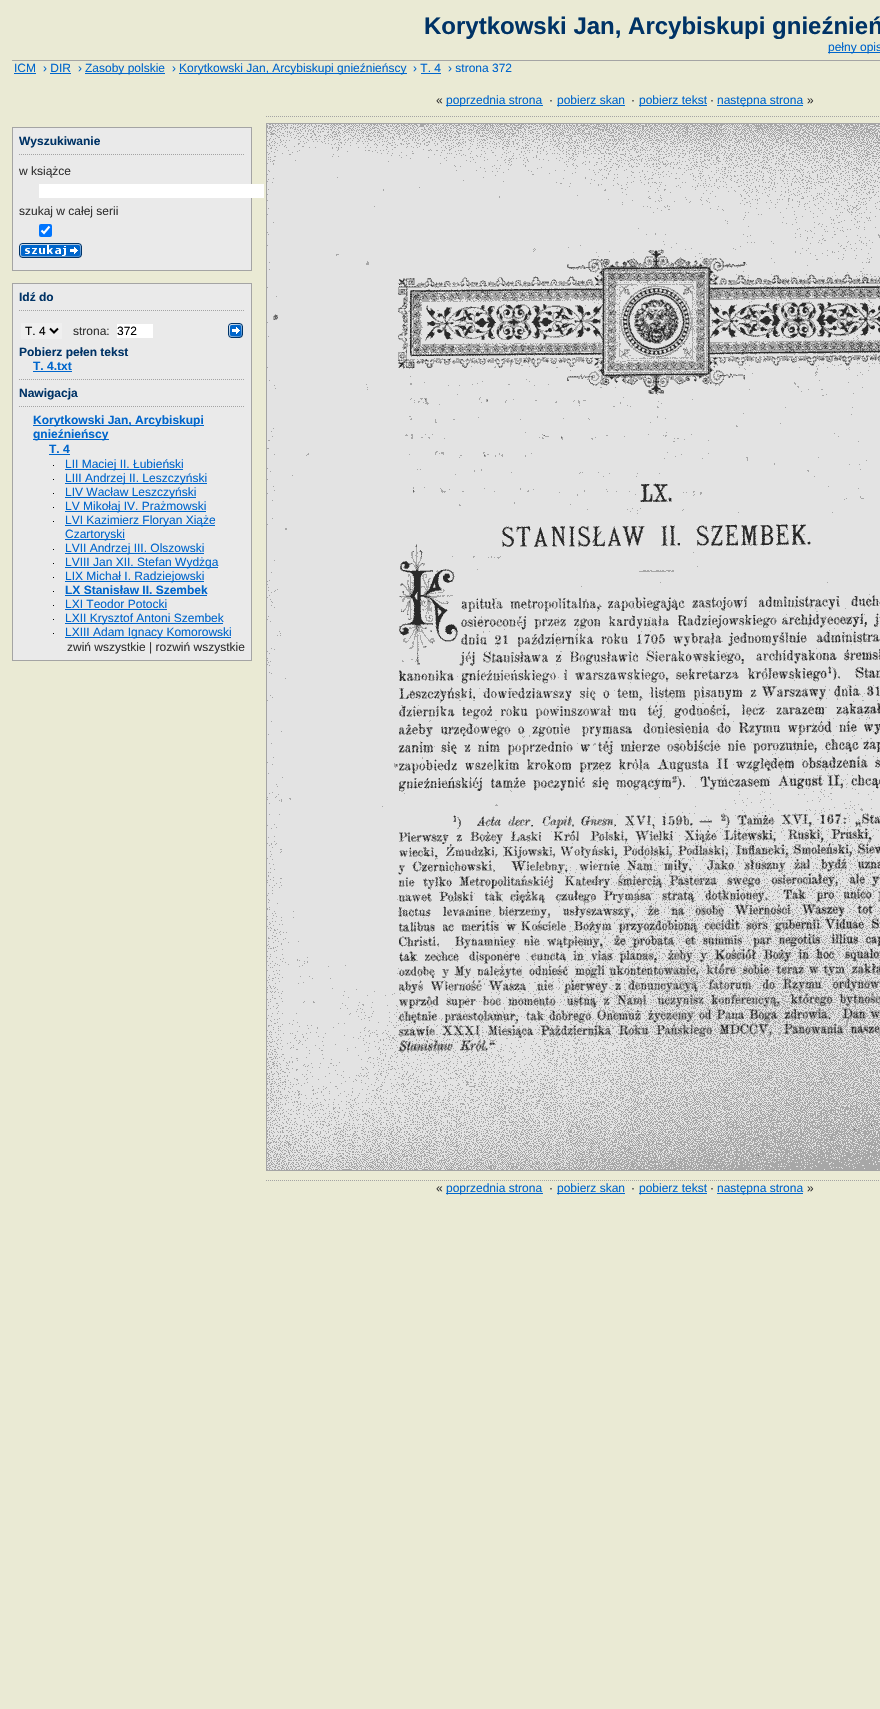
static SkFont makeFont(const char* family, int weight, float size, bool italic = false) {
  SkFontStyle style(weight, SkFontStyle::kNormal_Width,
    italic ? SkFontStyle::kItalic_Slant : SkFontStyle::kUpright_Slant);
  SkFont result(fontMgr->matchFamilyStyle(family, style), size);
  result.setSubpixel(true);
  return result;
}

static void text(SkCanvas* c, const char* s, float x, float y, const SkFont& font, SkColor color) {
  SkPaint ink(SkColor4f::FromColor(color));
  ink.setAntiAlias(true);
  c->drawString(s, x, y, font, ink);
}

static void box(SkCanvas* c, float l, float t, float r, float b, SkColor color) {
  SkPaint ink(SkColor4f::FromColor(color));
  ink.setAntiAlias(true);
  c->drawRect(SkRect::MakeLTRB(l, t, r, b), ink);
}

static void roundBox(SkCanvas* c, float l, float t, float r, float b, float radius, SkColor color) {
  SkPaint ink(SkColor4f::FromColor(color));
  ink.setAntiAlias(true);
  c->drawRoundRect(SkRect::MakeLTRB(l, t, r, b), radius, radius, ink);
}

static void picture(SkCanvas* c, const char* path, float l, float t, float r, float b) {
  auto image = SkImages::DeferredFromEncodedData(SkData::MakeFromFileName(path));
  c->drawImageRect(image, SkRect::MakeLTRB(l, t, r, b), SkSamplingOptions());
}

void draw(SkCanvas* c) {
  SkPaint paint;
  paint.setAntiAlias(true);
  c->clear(0xffeaead4);
  box(c, 12, 60, 880, 61, 0xffa4a4a4);
  SkFont face1 = makeFont("Liberation Sans", 700, 24);
  text(c, "Korytkowski Jan, Arcybiskupi gnieźnień", 424, 34, face1, 0xff003366);
  box(c, 828, 52, 880, 53, 0xff0066cc);
  SkFont face2 = makeFont("Liberation Sans", 400, 12);
  text(c, "pełny opis", 828, 51, face2, 0xff0066cc);
  text(c, "ICM", 14, 72, face2, 0xff0066cc);
  box(c, 14, 73, 36, 74, 0xff0066cc);
  text(c, "› DIR", 43, 72, face2, 0xff0066cc);
  text(c, "›", 78, 72, face2, 0xff0066cc);
  box(c, 85, 73, 165, 74, 0xff0066cc);
  text(c, "Zasoby polskie", 85, 72, face2, 0xff0066cc);
  text(c, "›", 172, 72, face2, 0xff0066cc);
  box(c, 179, 73, 407, 74, 0xff0066cc);
  text(c, "Korytkowski Jan, Arcybiskupi gnieźnieńscy", 179, 72, face2, 0xff0066cc);
  text(c, "› T. 4", 413, 72, face2, 0xff0066cc);
  text(c, "› strona 372", 448, 72, face2, 0xff0066cc);
  box(c, 50, 73, 71, 74, 0xff0066cc);
  box(c, 421, 73, 441, 74, 0xff0066cc);
  paint.setColor(0xffeaeaea);
  c->drawRect(SkRect::MakeLTRB(12.5f, 127.5f, 251.5f, 270.5f), paint);
  paint.setStyle(SkPaint::kStroke_Style);
  paint.setStrokeWidth(1);
  paint.setColor(0xffa4a4a4);
  c->drawRect(SkRect::MakeLTRB(12.5f, 127.5f, 251.5f, 270.5f), paint);
  paint.setPathEffect(SkDashPathEffect::Make({{1, 1}}, 0));
  c->drawPath(SkPathBuilder().moveTo(19, 154.5f).lineTo(245, 154.5f).detach(), paint);
  paint.setPathEffect(nullptr);
  SkFont face3 = makeFont("Liberation Sans", 700, 12);
  text(c, "Wyszukiwanie", 19, 145, face3, 0xff003366);
  text(c, "w książce", 19, 175, face2, 0xff333333);
  box(c, 39, 184, 264, 198, 0xffffffff);
  text(c, "szukaj w całej serii", 19, 215, face2, 0xff333333);
  roundBox(c, 39, 224, 52, 237, 2, 0xff0075ff);
  paint.setStrokeWidth(2.1f);
  paint.setColor(0xffffffff);
  c->drawPath(SkPathBuilder().moveTo(41.5f, 230.5f).lineTo(44, 233).lineTo(49.5f, 226.5f).detach(), paint);
  picture(c, "img_01.png", 19, 243, 82, 258);
  paint.setStyle(SkPaint::kFill_Style);
  paint.setColor(0xffeaeaea);
  c->drawRect(SkRect::MakeLTRB(12.5f, 283.5f, 251.5f, 660.5f), paint);
  paint.setStyle(SkPaint::kStroke_Style);
  paint.setStrokeWidth(1);
  paint.setColor(0xffa4a4a4);
  c->drawRect(SkRect::MakeLTRB(12.5f, 283.5f, 251.5f, 660.5f), paint);
  paint.setPathEffect(SkDashPathEffect::Make({{1, 1}}, 0));
  c->drawPath(SkPathBuilder().moveTo(19, 310.5f).lineTo(245, 310.5f).detach(), paint);
  paint.setPathEffect(nullptr);
  text(c, "Idź do", 19, 301, face3, 0xff003366);
  box(c, 21, 323, 62, 339, 0xffefefef);
  paint.setStrokeWidth(2);
  paint.setColor(0xff000000);
  c->drawPath(SkPathBuilder().moveTo(50, 328.5f).lineTo(54, 332.5f).lineTo(58, 328.5f).detach(), paint);
  text(c, "T. 4", 25, 335, face2, 0xff000000);
  text(c, "strona:", 73, 335, face2, 0xff333333);
  box(c, 117, 324, 153, 338, 0xffffffff);
  text(c, "372", 117, 335, face2, 0xff000000);
  picture(c, "img_02.png", 228, 323, 243, 338);
  paint.setStrokeWidth(1);
  paint.setColor(0xffa4a4a4);
  paint.setPathEffect(SkDashPathEffect::Make({{1, 1}}, 0));
  c->drawPath(SkPathBuilder().moveTo(19, 379.5f).lineTo(245, 379.5f).detach(), paint);
  paint.setPathEffect(nullptr);
  text(c, "Pobierz pełen tekst", 19, 356, face3, 0xff003366);
  text(c, "T. 4.txt", 33, 370, face3, 0xff0066cc);
  box(c, 33, 371, 72, 372, 0xff0066cc);
  paint.setPathEffect(SkDashPathEffect::Make({{1, 1}}, 0));
  c->drawPath(SkPathBuilder().moveTo(19, 406.5f).lineTo(245, 406.5f).detach(), paint);
  paint.setPathEffect(nullptr);
  text(c, "Nawigacja", 19, 397, face3, 0xff003366);
  box(c, 33, 425, 204, 426, 0xff0066cc);
  text(c, "Korytkowski Jan, Arcybiskupi", 33, 424, face3, 0xff0066cc);
  box(c, 33, 439, 109, 440, 0xff0066cc);
  text(c, "gnieźnieńscy", 33, 438, face3, 0xff0066cc);
  text(c, "T. 4", 49, 453, face3, 0xff0066cc);
  box(c, 49, 454, 70, 455, 0xff0066cc);
  box(c, 53, 465, 54, 466, 0xff000000);
  box(c, 65, 469, 183, 470, 0xff0066cc);
  text(c, "LII Maciej II. Łubieński", 65, 468, face2, 0xff0066cc);
  box(c, 53, 479, 54, 480, 0xff000000);
  box(c, 65, 483, 207, 484, 0xff0066cc);
  text(c, "LIII Andrzej II. Leszczyński", 65, 482, face2, 0xff0066cc);
  box(c, 53, 493, 54, 494, 0xff000000);
  box(c, 65, 497, 196, 498, 0xff0066cc);
  text(c, "LIV Wacław Leszczyński", 65, 496, face2, 0xff0066cc);
  box(c, 53, 507, 54, 508, 0xff000000);
  box(c, 65, 511, 206, 512, 0xff0066cc);
  text(c, "LV Mikołaj IV. Prażmowski", 65, 510, face2, 0xff0066cc);
  box(c, 53, 521, 54, 522, 0xff000000);
  box(c, 65, 525, 215, 526, 0xff0066cc);
  text(c, "LVI Kazimierz Floryan Xiąże", 65, 524, face2, 0xff0066cc);
  box(c, 65, 539, 125, 540, 0xff0066cc);
  text(c, "Czartoryski", 65, 538, face2, 0xff0066cc);
  box(c, 53, 549, 54, 550, 0xff000000);
  box(c, 65, 553, 204, 554, 0xff0066cc);
  text(c, "LVII Andrzej III. Olszowski", 65, 552, face2, 0xff0066cc);
  box(c, 53, 563, 54, 564, 0xff000000);
  box(c, 65, 567, 218, 568, 0xff0066cc);
  text(c, "LVIII Jan XII. Stefan Wydżga", 65, 566, face2, 0xff0066cc);
  box(c, 53, 577, 54, 578, 0xff000000);
  box(c, 65, 581, 204, 582, 0xff0066cc);
  text(c, "LIX Michał I. Radziejowski", 65, 580, face2, 0xff0066cc);
  box(c, 53, 591, 54, 592, 0xff000000);
  text(c, "LX Stanisław II. Szembek", 65, 594, face3, 0xff0066cc);
  box(c, 65, 595, 207, 596, 0xff0066cc);
  box(c, 53, 605, 54, 606, 0xff000000);
  text(c, "LXI Teodor Potocki", 65, 608, face2, 0xff0066cc);
  box(c, 65, 609, 167, 610, 0xff0066cc);
  box(c, 53, 619, 54, 620, 0xff000000);
  box(c, 65, 623, 223, 624, 0xff0066cc);
  text(c, "LXII Krysztof Antoni Szembek", 65, 622, face2, 0xff0066cc);
  box(c, 53, 633, 54, 634, 0xff000000);
  box(c, 65, 637, 231, 638, 0xff0066cc);
  text(c, "LXIII Adam Ignacy Komorowski", 65, 636, face2, 0xff0066cc);
  text(c, "zwiń wszystkie | rozwiń wszystkie", 67, 651, face2, 0xff333333);
  paint.setPathEffect(SkDashPathEffect::Make({{1, 1}}, 0));
  c->drawPath(SkPathBuilder().moveTo(266, 116.5f).lineTo(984, 116.5f).detach(), paint);
  paint.setPathEffect(nullptr);
  text(c, "«", 436, 104, face2, 0xff333333);
  box(c, 446, 105, 543, 106, 0xff0066cc);
  text(c, "poprzednia strona", 446, 104, face2, 0xff0066cc);
  text(c, "·", 549, 104, face2, 0xff333333);
  box(c, 557, 105, 625, 106, 0xff0066cc);
  text(c, "pobierz skan", 557, 104, face2, 0xff0066cc);
  text(c, "·", 631, 104, face2, 0xff333333);
  box(c, 639, 105, 707, 106, 0xff0066cc);
  text(c, "pobierz tekst", 639, 104, face2, 0xff0066cc);
  text(c, "·", 710, 104, face2, 0xff333333);
  box(c, 717, 105, 803, 106, 0xff0066cc);
  text(c, "następna strona", 717, 104, face2, 0xff0066cc);
  text(c, "»", 807, 104, face2, 0xff333333);
  c->drawRect(SkRect::MakeLTRB(266.5f, 123.5f, 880.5f, 1170.5f), paint);
  picture(c, "img_03.png", 267, 124, 880, 1170);
  paint.setPathEffect(SkDashPathEffect::Make({{1, 1}}, 0));
  c->drawPath(SkPathBuilder().moveTo(266, 1180.5f).lineTo(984, 1180.5f).detach(), paint);
  paint.setPathEffect(nullptr);
  text(c, "«", 436, 1192, face2, 0xff333333);
  box(c, 446, 1193, 543, 1194, 0xff0066cc);
  text(c, "poprzednia strona", 446, 1192, face2, 0xff0066cc);
  text(c, "·", 549, 1192, face2, 0xff333333);
  box(c, 557, 1193, 625, 1194, 0xff0066cc);
  text(c, "pobierz skan", 557, 1192, face2, 0xff0066cc);
  text(c, "·", 631, 1192, face2, 0xff333333);
  box(c, 639, 1193, 707, 1194, 0xff0066cc);
  text(c, "pobierz tekst", 639, 1192, face2, 0xff0066cc);
  text(c, "·", 710, 1192, face2, 0xff333333);
  box(c, 717, 1193, 803, 1194, 0xff0066cc);
  text(c, "następna strona", 717, 1192, face2, 0xff0066cc);
  text(c, "»", 807, 1192, face2, 0xff333333);
}
